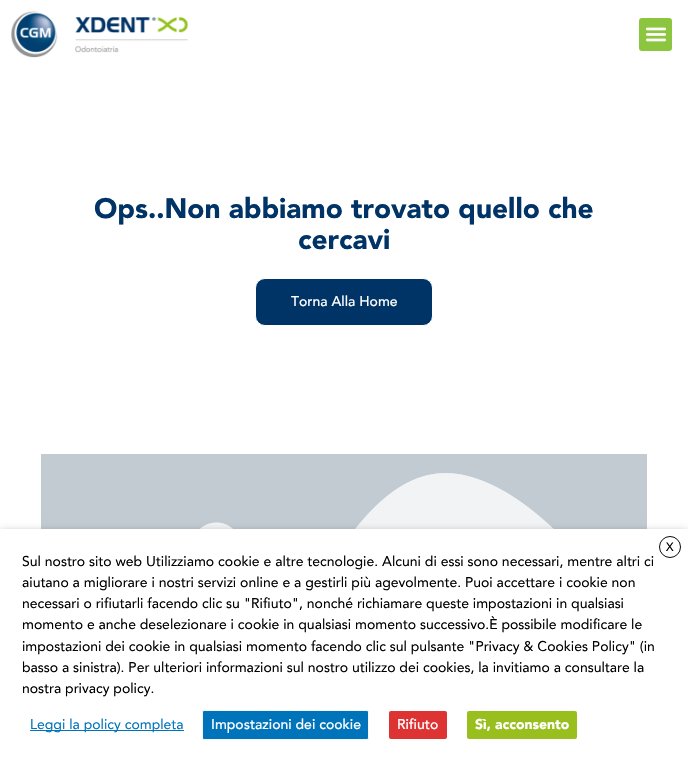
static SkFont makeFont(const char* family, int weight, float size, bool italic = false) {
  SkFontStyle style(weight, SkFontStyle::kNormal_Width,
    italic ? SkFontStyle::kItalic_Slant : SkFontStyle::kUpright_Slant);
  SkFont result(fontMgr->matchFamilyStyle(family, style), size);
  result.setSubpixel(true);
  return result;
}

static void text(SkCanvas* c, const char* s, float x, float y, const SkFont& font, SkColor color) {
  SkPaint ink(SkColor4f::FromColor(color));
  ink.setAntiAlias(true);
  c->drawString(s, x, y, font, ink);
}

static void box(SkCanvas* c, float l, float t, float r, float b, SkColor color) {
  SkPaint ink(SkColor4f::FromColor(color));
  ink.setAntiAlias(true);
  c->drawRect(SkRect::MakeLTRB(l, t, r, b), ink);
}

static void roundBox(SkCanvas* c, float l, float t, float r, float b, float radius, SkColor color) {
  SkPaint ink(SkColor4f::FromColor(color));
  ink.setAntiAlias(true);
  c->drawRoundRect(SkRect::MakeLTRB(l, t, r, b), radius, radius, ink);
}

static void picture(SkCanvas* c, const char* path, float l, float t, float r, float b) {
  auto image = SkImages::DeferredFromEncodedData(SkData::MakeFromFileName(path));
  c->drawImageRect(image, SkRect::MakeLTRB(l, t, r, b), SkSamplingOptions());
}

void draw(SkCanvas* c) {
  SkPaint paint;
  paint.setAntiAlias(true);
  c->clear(0xffffffff);
  picture(c, "img_01.png", 11, 11, 188, 58);
  roundBox(c, 639, 18, 672, 51, 3, 0xff8cc63f);
  picture(c, "img_02.png", 645, 27, 667, 42);
  SkFont face1 = makeFont("Avenir", 900, 28);
  text(c, "Ops..Non abbiamo trovato quello che", 94, 218, face1, 0xff003366);
  text(c, "cercavi", 298, 249, face1, 0xff003366);
  paint.setColor(0xff003366);
  c->drawRoundRect(SkRect::MakeLTRB(255.5f, 278.5f, 432.5f, 325.5f), 9.5f, 9.5f, paint);
  paint.setStyle(SkPaint::kStroke_Style);
  paint.setStrokeWidth(1);
  paint.setColor(0xffffffff);
  c->drawRoundRect(SkRect::MakeLTRB(255.5f, 278.5f, 432.5f, 325.5f), 9.5f, 9.5f, paint);
  SkFont face2 = makeFont("Avenir", 500, 14);
  text(c, "Torna Alla Home", 291, 306, face2, 0xffffffff);
  picture(c, "img_03.png", 41, 454, 647, 529);
  paint.setStyle(SkPaint::kFill_Style);
  paint.setColor(0x80000000);
  paint.setMaskFilter(SkMaskFilter::MakeBlur(kNormal_SkBlurStyle, 5));
  c->drawRect(SkRect::MakeLTRB(0, 534, 688, 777), paint);
  paint.setMaskFilter(nullptr);
  box(c, 0, 529, 688, 772, 0xffffffff);
  paint.setStyle(SkPaint::kStroke_Style);
  paint.setColor(0xff0a0a0a);
  c->drawCircle(670, 547, 10.5f, paint);
  SkFont face3 = makeFont("Avenir", 400, 12);
  text(c, "X", 666, 551, face3, 0xff000000);
  SkFont face4 = makeFont("Avenir", 400, 14);
  text(c, "Sul nostro sito web Utilizziamo cookie e altre tecnologie. Alcuni di essi sono necessari, mentre altri ci", 22, 566, face4, 0xff000000);
  text(c, "aiutano a migliorare i nostri servizi online e a gestirli più agevolmente. Puoi accettare i cookie non", 22, 587, face4, 0xff000000);
  text(c, "necessari o rifiutarli facendo clic su \"Rifiuto\", nonché richiamare queste impostazioni in qualsiasi", 22, 608, face4, 0xff000000);
  text(c, "momento e anche deselezionare i cookie in qualsiasi momento successivo.È possibile modificare le", 22, 629, face4, 0xff000000);
  text(c, "impostazioni dei cookie in qualsiasi momento facendo clic sul pulsante \"Privacy & Cookies Policy\" (in", 22, 651, face4, 0xff000000);
  text(c, "basso a sinistra). Per ulteriori informazioni sul nostro utilizzo dei cookies, la invitiamo a consultare la", 22, 672, face4, 0xff000000);
  text(c, "nostra privacy policy.", 22, 693, face4, 0xff000000);
  box(c, 30, 730, 184, 731, 0xff0074bb);
  text(c, "Leggi la policy completa", 30, 729, face4, 0xff0074bb);
  paint.setStyle(SkPaint::kFill_Style);
  paint.setColor(0xff0074bb);
  c->drawRoundRect(SkRect::MakeLTRB(202.5f, 710.5f, 368.5f, 739.5f), 1.5f, 1.5f, paint);
  paint.setStyle(SkPaint::kStroke_Style);
  paint.setColor(0xfff4f4f9);
  c->drawRoundRect(SkRect::MakeLTRB(202.5f, 710.5f, 368.5f, 739.5f), 1.5f, 1.5f, paint);
  text(c, "Impostazioni dei cookie", 211, 729, face2, 0xffffffff);
  roundBox(c, 389, 711, 447, 739, 2, 0xffdd3333);
  text(c, "Rifiuto", 397, 729, face2, 0xffffffff);
  roundBox(c, 467, 711, 577, 739, 2, 0xff99bf1e);
  SkFont face5 = makeFont("Avenir", 900, 14);
  text(c, "Sì, acconsento", 475, 729, face5, 0xffffffff);
}
